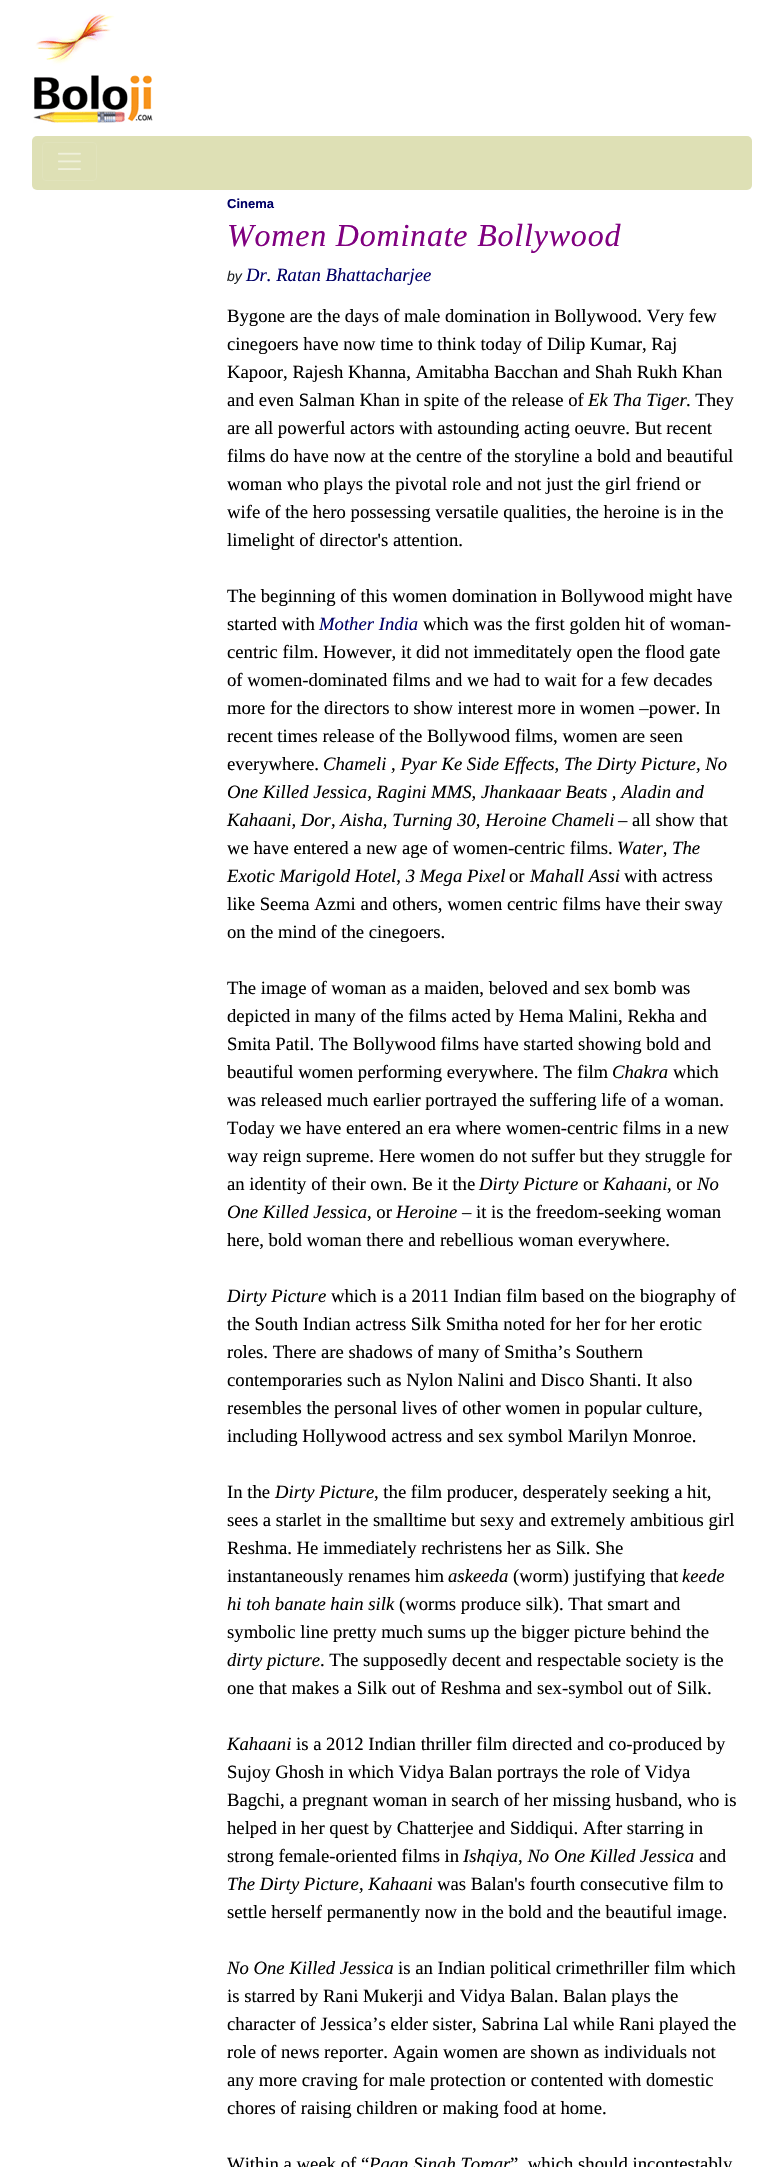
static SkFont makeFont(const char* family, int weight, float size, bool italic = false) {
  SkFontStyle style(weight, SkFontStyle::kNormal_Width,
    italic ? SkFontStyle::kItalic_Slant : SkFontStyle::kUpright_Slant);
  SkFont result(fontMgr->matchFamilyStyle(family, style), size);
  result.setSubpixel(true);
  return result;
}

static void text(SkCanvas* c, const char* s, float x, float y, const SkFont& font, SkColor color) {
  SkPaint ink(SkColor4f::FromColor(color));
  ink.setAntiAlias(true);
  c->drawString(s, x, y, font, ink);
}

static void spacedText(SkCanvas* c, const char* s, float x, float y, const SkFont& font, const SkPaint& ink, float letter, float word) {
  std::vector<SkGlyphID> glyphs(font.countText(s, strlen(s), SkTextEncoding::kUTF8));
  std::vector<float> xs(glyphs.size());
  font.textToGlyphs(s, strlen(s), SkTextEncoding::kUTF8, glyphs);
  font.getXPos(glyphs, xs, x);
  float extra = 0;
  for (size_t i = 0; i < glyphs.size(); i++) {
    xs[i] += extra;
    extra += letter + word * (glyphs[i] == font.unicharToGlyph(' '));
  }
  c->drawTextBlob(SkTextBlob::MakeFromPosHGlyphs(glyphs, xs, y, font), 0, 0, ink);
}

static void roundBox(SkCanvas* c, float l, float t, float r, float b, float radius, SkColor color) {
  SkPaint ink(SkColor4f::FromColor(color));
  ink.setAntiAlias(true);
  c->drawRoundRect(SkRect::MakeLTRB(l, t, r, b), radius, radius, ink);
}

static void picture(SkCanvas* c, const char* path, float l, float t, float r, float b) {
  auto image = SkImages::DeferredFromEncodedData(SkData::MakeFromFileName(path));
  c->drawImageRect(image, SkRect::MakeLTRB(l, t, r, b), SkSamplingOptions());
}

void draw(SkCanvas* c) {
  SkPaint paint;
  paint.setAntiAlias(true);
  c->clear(0xffffffff);
  picture(c, "img_01.png", 33, 14, 153, 123);
  roundBox(c, 32, 136, 752, 190, 5, 0xffdee0b5);
  paint.setStyle(SkPaint::kStroke_Style);
  paint.setStrokeWidth(1);
  paint.setColor(0xffe1e3bc);
  c->drawRoundRect(SkRect::MakeLTRB(42.5f, 142.5f, 96.5f, 180.5f), 3.5f, 3.5f, paint);
  picture(c, "img_02.png", 58, 152, 81, 170);
  SkFont face1 = makeFont("Liberation Sans", 700, 13);
  text(c, "Cinema", 227, 208, face1, 0xff000066);
  SkFont face2 = makeFont("Liberation Serif", 400, 32, true);
  paint.setStyle(SkPaint::kFill_Style);
  paint.setColor(0xff800080);
  spacedText(c, "Women Dominate Bollywood", 227, 246, face2, paint, 0.8f, 0);
  SkFont face3 = makeFont("Liberation Sans", 400, 14, true);
  text(c, "by", 227, 281, face3, 0xff212529);
  SkFont face4 = makeFont("Liberation Serif", 400, 18.7f, true);
  text(c, "Dr. Ratan Bhattacharjee", 246, 281, face4, 0xff000066);
  SkFont face5 = makeFont("Liberation Serif", 400, 18.7f);
  text(c, "Bygone are the days of male domination in Bollywood. Very few", 227, 322, face5, 0xff000000);
  text(c, "cinegoers have now time to think today of Dilip Kumar, Raj", 227, 350, face5, 0xff000000);
  text(c, "Kapoor, Rajesh Khanna, Amitabha Bacchan and Shah Rukh Khan", 227, 378, face5, 0xff000000);
  text(c, "and even Salman Khan in spite of the release of", 227, 406, face5, 0xff000000);
  text(c, "Ek Tha Tiger", 588, 406, face4, 0xff000000);
  text(c, ". They", 686, 406, face5, 0xff000000);
  text(c, "are all powerful actors with astounding acting oeuvre. But recent", 227, 434, face5, 0xff000000);
  text(c, "films do have now at the centre of the storyline a bold and beautiful", 227, 462, face5, 0xff000000);
  text(c, "woman who plays the pivotal role and not just the girl friend or", 227, 490, face5, 0xff000000);
  text(c, "wife of the hero possessing versatile qualities, the heroine is in the", 227, 518, face5, 0xff000000);
  text(c, "limelight of director's attention.", 227, 546, face5, 0xff000000);
  text(c, "The beginning of this women domination in Bollywood might have", 227, 602, face5, 0xff000000);
  text(c, "started with", 227, 630, face5, 0xff000000);
  text(c, "Mother India", 319, 630, face4, 0xff000066);
  text(c, "which was the first golden hit of woman-", 423, 630, face5, 0xff000000);
  text(c, "centric film. However, it did not immeditately open the flood gate", 227, 658, face5, 0xff000000);
  text(c, "of women-dominated films and we had to wait for a few decades", 227, 686, face5, 0xff000000);
  text(c, "more for the directors to show interest more in women –power. In", 227, 714, face5, 0xff000000);
  text(c, "recent times release of the Bollywood films, women are seen", 227, 742, face5, 0xff000000);
  text(c, "everywhere.", 227, 770, face5, 0xff000000);
  text(c, "Chameli , Pyar Ke Side Effects, The Dirty Picture, No", 323, 770, face4, 0xff000000);
  text(c, "One Killed Jessica, Ragini MMS, Jhankaaar Beats , Aladin and", 227, 798, face4, 0xff000000);
  text(c, "Kahaani, Dor, Aisha, Turning 30, Heroine Chameli", 227, 826, face4, 0xff000000);
  text(c, "– all show that", 618, 826, face5, 0xff000000);
  text(c, "we have entered a new age of women-centric films.", 227, 854, face5, 0xff000000);
  text(c, "Water, The", 617, 854, face4, 0xff000000);
  text(c, "Exotic Marigold Hotel, 3 Mega Pixel", 227, 882, face4, 0xff000000);
  text(c, "or", 509, 882, face5, 0xff000000);
  text(c, "Mahall Assi", 530, 882, face4, 0xff000000);
  text(c, "with actress", 624, 882, face5, 0xff000000);
  text(c, "like Seema Azmi and others, women centric films have their sway", 227, 910, face5, 0xff000000);
  text(c, "on the mind of the cinegoers.", 227, 938, face5, 0xff000000);
  text(c, "The image of woman as a maiden, beloved and sex bomb was", 227, 994, face5, 0xff000000);
  text(c, "depicted in many of the films acted by Hema Malini, Rekha and", 227, 1022, face5, 0xff000000);
  text(c, "Smita Patil. The Bollywood films have started showing bold and", 227, 1050, face5, 0xff000000);
  text(c, "beautiful women performing everywhere. The film", 227, 1078, face5, 0xff000000);
  text(c, "Chakra", 612, 1078, face4, 0xff000000);
  text(c, "which", 673, 1078, face5, 0xff000000);
  text(c, "was released much earlier portrayed the suffering life of a woman.", 227, 1106, face5, 0xff000000);
  text(c, "Today we have entered an era where women-centric films in a new", 227, 1134, face5, 0xff000000);
  text(c, "way reign supreme. Here women do not suffer but they struggle for", 227, 1162, face5, 0xff000000);
  text(c, "an identity of their own. Be it the", 227, 1190, face5, 0xff000000);
  text(c, "Dirty Picture", 479, 1190, face4, 0xff000000);
  text(c, "or", 583, 1190, face5, 0xff000000);
  text(c, "Kahaani", 603, 1190, face4, 0xff000000);
  text(c, ", or", 667, 1190, face5, 0xff000000);
  text(c, "No", 697, 1190, face4, 0xff000000);
  text(c, "One Killed Jessica", 227, 1218, face4, 0xff000000);
  text(c, ", or", 367, 1218, face5, 0xff000000);
  text(c, "Heroine", 396, 1218, face4, 0xff000000);
  text(c, "– it is the freedom-seeking woman", 462, 1218, face5, 0xff000000);
  text(c, "here, bold woman there and rebellious woman everywhere.", 227, 1246, face5, 0xff000000);
  text(c, "Dirty Picture", 227, 1302, face4, 0xff000000);
  text(c, "which is a 2011 Indian film based on the biography of", 331, 1302, face5, 0xff000000);
  text(c, "the South Indian actress Silk Smitha noted for her for her erotic", 227, 1330, face5, 0xff000000);
  text(c, "roles. There are shadows of many of Smitha’s Southern", 227, 1358, face5, 0xff000000);
  text(c, "contemporaries such as Nylon Nalini and Disco Shanti. It also", 227, 1386, face5, 0xff000000);
  text(c, "resembles the personal lives of other women in popular culture,", 227, 1414, face5, 0xff000000);
  text(c, "including Hollywood actress and sex symbol Marilyn Monroe.", 227, 1442, face5, 0xff000000);
  text(c, "In the", 227, 1498, face5, 0xff000000);
  text(c, "Dirty Picture", 275, 1498, face4, 0xff000000);
  text(c, ", the film producer, desperately seeking a hit,", 374, 1498, face5, 0xff000000);
  text(c, "sees a starlet in the smalltime but sexy and extremely ambitious girl", 227, 1526, face5, 0xff000000);
  text(c, "Reshma. He immediately rechristens her as Silk. She", 227, 1554, face5, 0xff000000);
  text(c, "instantaneously renames him", 227, 1582, face5, 0xff000000);
  text(c, "askeeda", 448, 1582, face4, 0xff000000);
  text(c, "(worm) justifying that", 513, 1582, face5, 0xff000000);
  text(c, "keede", 682, 1582, face4, 0xff000000);
  text(c, "hi toh banate hain silk", 227, 1610, face4, 0xff000000);
  text(c, "(worms produce silk). That smart and", 399, 1610, face5, 0xff000000);
  text(c, "symbolic line pretty much sums up the bigger picture behind the", 227, 1638, face5, 0xff000000);
  text(c, "dirty picture", 227, 1666, face4, 0xff000000);
  text(c, ". The supposedly decent and respectable society is the", 320, 1666, face5, 0xff000000);
  text(c, "one that makes a Silk out of Reshma and sex-symbol out of Silk.", 227, 1694, face5, 0xff000000);
  text(c, "Kahaani", 227, 1750, face4, 0xff000000);
  text(c, "is a 2012 Indian thriller film directed and co-produced by", 296, 1750, face5, 0xff000000);
  text(c, "Sujoy Ghosh in which Vidya Balan portrays the role of Vidya", 227, 1778, face5, 0xff000000);
  text(c, "Bagchi, a pregnant woman in search of her missing husband, who is", 227, 1806, face5, 0xff000000);
  text(c, "helped in her quest by Chatterjee and Siddiqui. After starring in", 227, 1834, face5, 0xff000000);
  text(c, "strong female-oriented films in", 227, 1862, face5, 0xff000000);
  text(c, "Ishqiya, No One Killed Jessica", 463, 1862, face4, 0xff000000);
  text(c, "and", 699, 1862, face5, 0xff000000);
  text(c, "The Dirty Picture, Kahaani", 227, 1890, face4, 0xff000000);
  text(c, "was Balan's fourth consecutive film to", 437, 1890, face5, 0xff000000);
  text(c, "settle herself permanently now in the bold and the beautiful image.", 227, 1918, face5, 0xff000000);
  text(c, "No One Killed Jessica", 227, 1974, face4, 0xff000000);
  text(c, "is an Indian political crimethriller film which", 398, 1974, face5, 0xff000000);
  text(c, "is starred by Rani Mukerji and Vidya Balan. Balan plays the", 227, 2002, face5, 0xff000000);
  text(c, "character of Jessica’s elder sister, Sabrina Lal while Rani played the", 227, 2030, face5, 0xff000000);
  text(c, "role of news reporter. Again women are shown as individuals not", 227, 2058, face5, 0xff000000);
  text(c, "any more craving for male protection or contented with domestic", 227, 2086, face5, 0xff000000);
  text(c, "chores of raising children or making food at home.", 227, 2114, face5, 0xff000000);
  text(c, "Within a week of “", 227, 2170, face5, 0xff000000);
  text(c, "Paan Singh Tomar", 369, 2170, face4, 0xff000000);
  text(c, "”, which should incontestably", 510, 2170, face5, 0xff000000);
}
